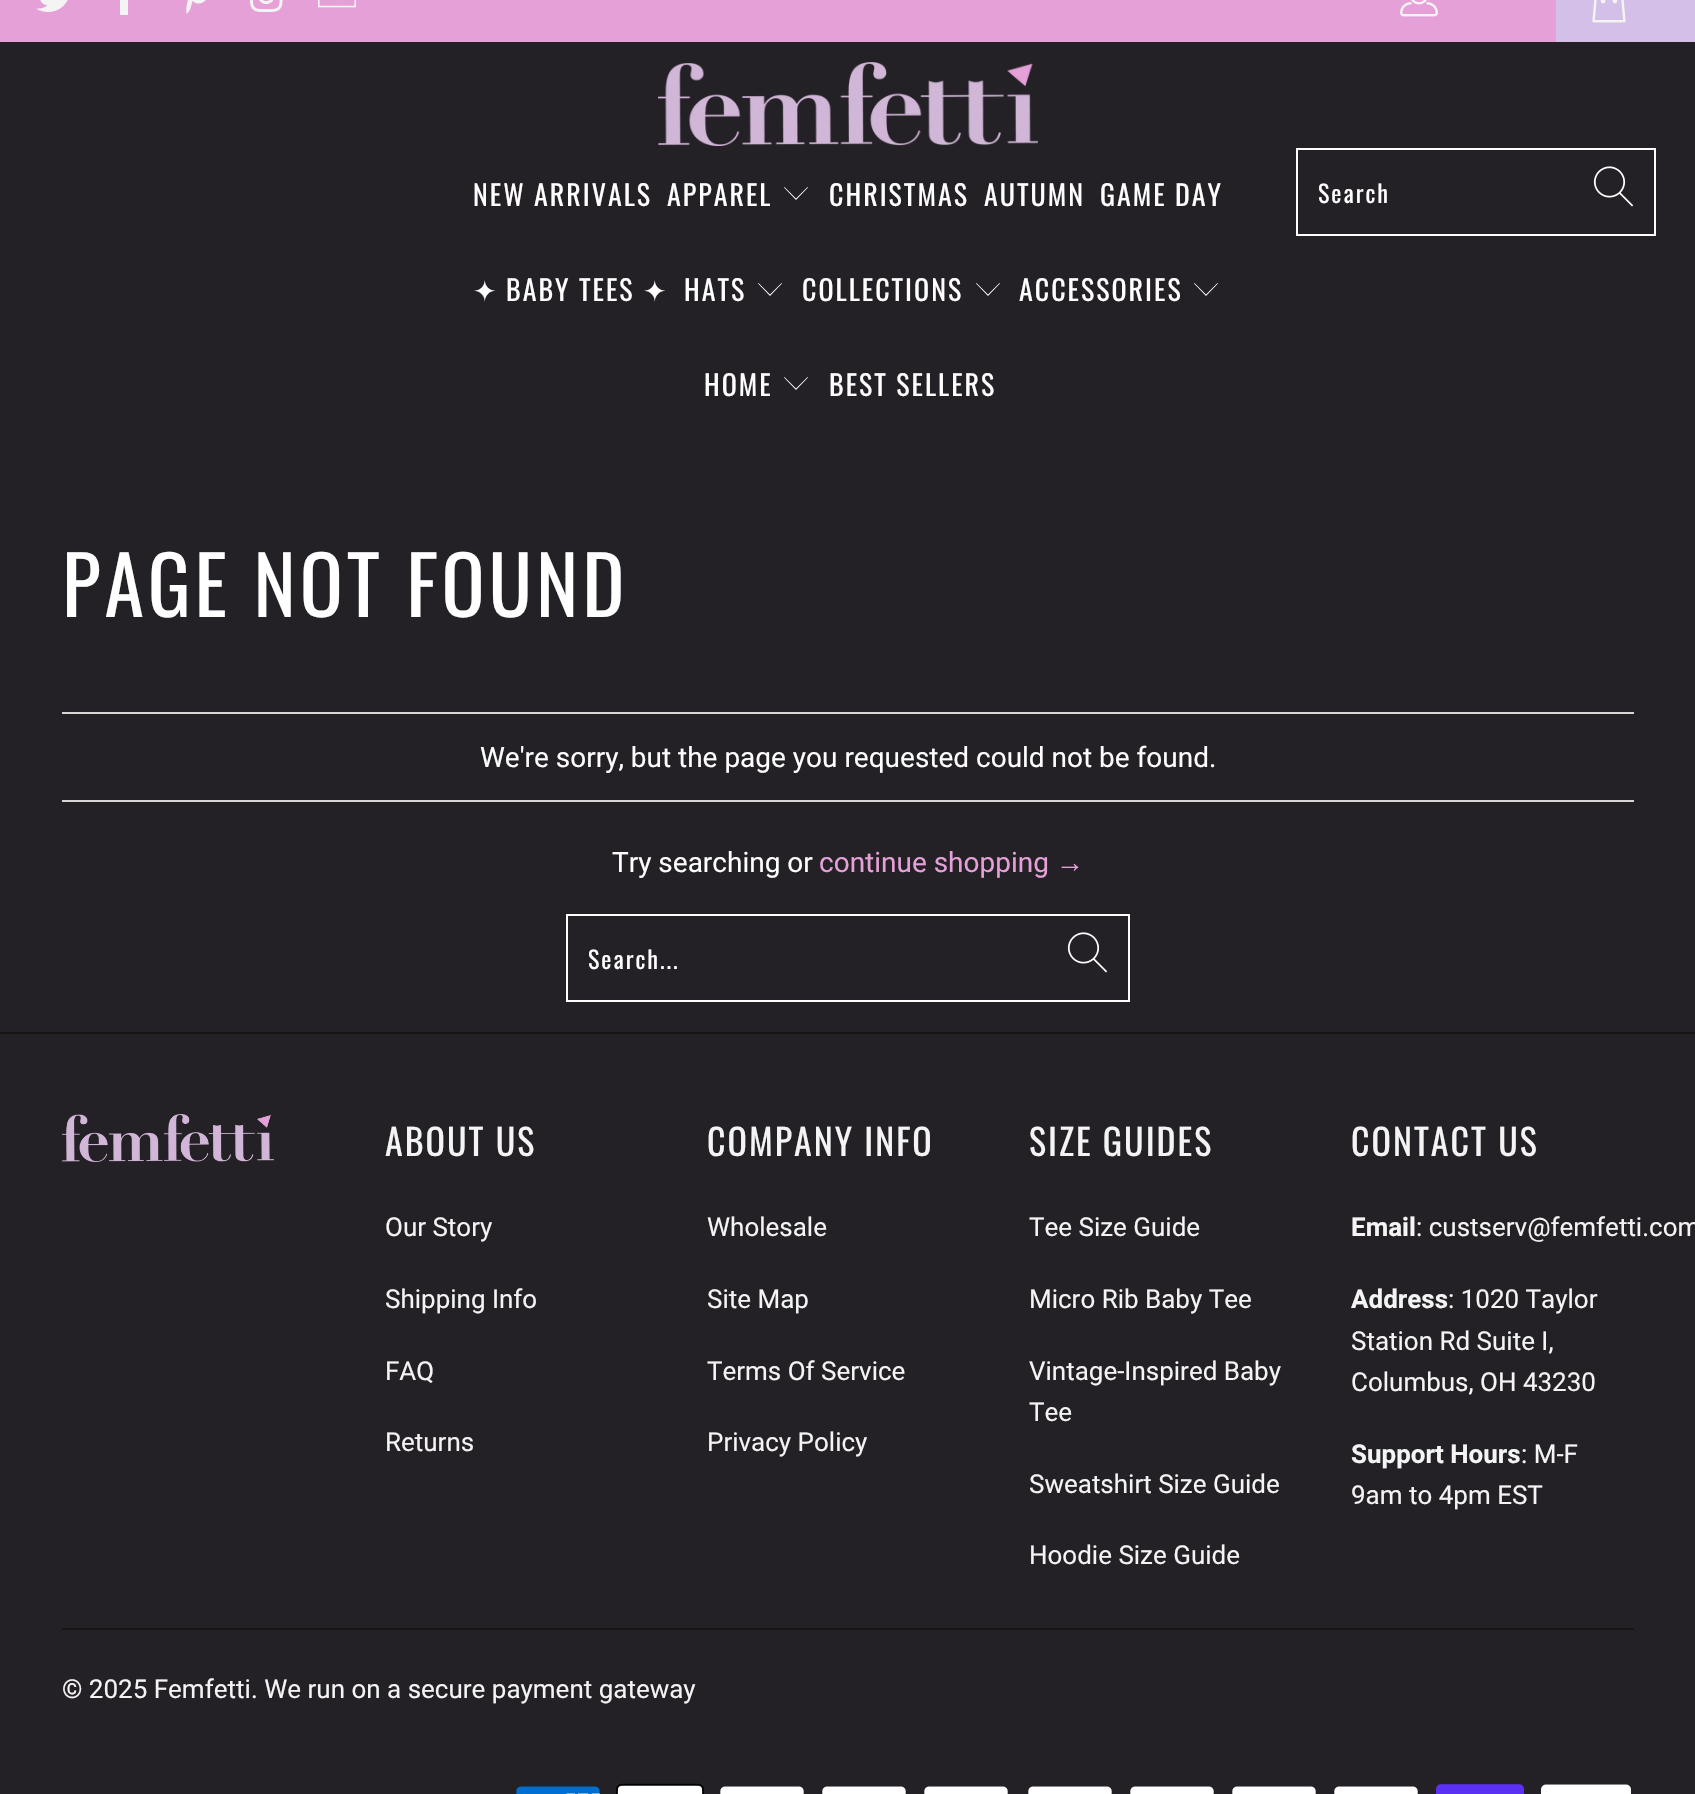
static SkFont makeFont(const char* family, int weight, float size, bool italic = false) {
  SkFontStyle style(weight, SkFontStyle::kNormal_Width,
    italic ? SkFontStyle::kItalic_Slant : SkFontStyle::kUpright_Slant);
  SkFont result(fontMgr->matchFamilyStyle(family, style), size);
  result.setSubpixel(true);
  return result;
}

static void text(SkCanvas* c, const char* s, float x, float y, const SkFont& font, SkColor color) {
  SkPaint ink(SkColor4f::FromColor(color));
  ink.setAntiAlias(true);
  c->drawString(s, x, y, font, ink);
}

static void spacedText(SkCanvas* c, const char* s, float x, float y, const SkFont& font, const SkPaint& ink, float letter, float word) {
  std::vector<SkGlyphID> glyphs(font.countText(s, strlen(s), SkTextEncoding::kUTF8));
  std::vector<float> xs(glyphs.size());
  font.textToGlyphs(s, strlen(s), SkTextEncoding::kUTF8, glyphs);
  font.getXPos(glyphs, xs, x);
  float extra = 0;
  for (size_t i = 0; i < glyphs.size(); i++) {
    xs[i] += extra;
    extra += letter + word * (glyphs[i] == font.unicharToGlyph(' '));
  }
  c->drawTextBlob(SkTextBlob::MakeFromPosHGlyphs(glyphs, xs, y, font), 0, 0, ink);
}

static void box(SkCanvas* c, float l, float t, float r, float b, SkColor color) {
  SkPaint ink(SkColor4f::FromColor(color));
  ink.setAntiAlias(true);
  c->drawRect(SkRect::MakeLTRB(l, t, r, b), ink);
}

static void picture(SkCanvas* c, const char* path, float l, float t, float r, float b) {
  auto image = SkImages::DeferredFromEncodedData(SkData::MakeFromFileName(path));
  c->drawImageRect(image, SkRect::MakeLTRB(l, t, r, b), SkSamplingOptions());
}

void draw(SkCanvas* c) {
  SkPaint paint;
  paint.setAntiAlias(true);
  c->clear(0xff232026);
  box(c, 0, 0, 1556, 42, 0xffe5a0d7);
  picture(c, "img_01.png", 36, 0, 68, 12);
  box(c, 120, 0, 128, 15, 0xfff4f4f4);
  picture(c, "img_02.png", 186, 0, 206, 14);
  picture(c, "img_03.png", 250, 0, 283, 12);
  picture(c, "img_04.png", 318, 0, 356, 8);
  picture(c, "img_05.png", 1400, 0, 1438, 17);
  box(c, 1556, 0, 1695, 42, 0xffd3bfe8);
  picture(c, "img_06.png", 1592, 0, 1626, 23);
  picture(c, "img_07.png", 658, 62, 1038, 146);
  SkFont face1 = makeFont("Oswald", 400, 28);
  paint.setColor(0xffffffff);
  spacedText(c, "NEW ARRIVALS", 473, 206, face1, paint, 2, 0);
  spacedText(c, "APPAREL", 667, 206, face1, paint, 2, 0);
  c->drawPath(SkPathBuilder().moveTo(796, 200).lineTo(784, 187.5f).lineTo(784.5f, 187).lineTo(796, 198.5f).lineTo(807.5f, 187).lineTo(808, 187.5f).close().detach(), paint);
  spacedText(c, "CHRISTMAS", 829, 206, face1, paint, 2, 0);
  spacedText(c, "AUTUMN", 984, 206, face1, paint, 2, 0);
  spacedText(c, "GAME DAY", 1100, 206, face1, paint, 2, 0);
  SkFont face2 = makeFont("DejaVu Sans", 400, 28);
  spacedText(c, "✦", 473, 301, face2, paint, 2, 0);
  spacedText(c, "BABY TEES", 506, 301, face1, paint, 2, 0);
  spacedText(c, "✦", 643, 301, face2, paint, 2, 0);
  spacedText(c, "HATS", 684, 301, face1, paint, 2, 0);
  c->drawPath(SkPathBuilder().moveTo(770, 296).lineTo(758, 283.5f).lineTo(758.5f, 283).lineTo(770, 294.5f).lineTo(781.5f, 283).lineTo(782, 283.5f).close().detach(), paint);
  spacedText(c, "COLLECTIONS", 802, 301, face1, paint, 2, 0);
  c->drawPath(SkPathBuilder().moveTo(988, 296).lineTo(976, 283.5f).lineTo(976.5f, 283).lineTo(988, 294.5f).lineTo(999.5f, 283).lineTo(1000, 283.5f).close().detach(), paint);
  spacedText(c, "ACCESSORIES", 1019, 301, face1, paint, 2, 0);
  c->drawPath(SkPathBuilder().moveTo(1206, 296).lineTo(1194, 283.5f).lineTo(1194.5f, 283).lineTo(1206, 294.5f).lineTo(1217.5f, 283).lineTo(1218, 283.5f).close().detach(), paint);
  spacedText(c, "HOME", 704, 396, face1, paint, 2, 0);
  c->drawPath(SkPathBuilder().moveTo(796, 390).lineTo(784, 377.5f).lineTo(784.5f, 377).lineTo(796, 388.5f).lineTo(807.5f, 377).lineTo(808, 377.5f).close().detach(), paint);
  spacedText(c, "BEST SELLERS", 829, 396, face1, paint, 2, 0);
  paint.setStyle(SkPaint::kStroke_Style);
  paint.setStrokeWidth(2);
  c->drawRect(SkRect::MakeLTRB(1297, 149, 1655, 235), paint);
  SkFont face3 = makeFont("Oswald", 400, 24);
  paint.setStyle(SkPaint::kFill_Style);
  spacedText(c, "Search", 1318, 203, face3, paint, 2, 0);
  picture(c, "img_08.png", 1593, 166, 1634, 207);
  SkFont face4 = makeFont("Oswald", 400, 80);
  spacedText(c, "PAGE NOT FOUND", 62, 617, face4, paint, 4, 0);
  box(c, 62, 712, 1634, 714, 0xffd7d7d7);
  box(c, 62, 800, 1634, 802, 0xffd7d7d7);
  SkFont face5 = makeFont("Roboto", 400, 28);
  text(c, "We're sorry, but the page you requested could not be found.", 480, 767, face5, 0xffffffff);
  text(c, "Try searching or", 612, 872, face5, 0xffffffff);
  text(c, "continue shopping", 819, 872, face5, 0xffe5a0d7);
  SkFont face6 = makeFont("Liberation Sans", 400, 28);
  text(c, "→", 1056, 872, face6, 0xffe5a0d7);
  paint.setStyle(SkPaint::kStroke_Style);
  c->drawRect(SkRect::MakeLTRB(567, 915, 1129, 1001), paint);
  paint.setStyle(SkPaint::kFill_Style);
  spacedText(c, "Search...", 588, 969, face3, paint, 2, 0);
  picture(c, "img_08.png", 1067, 932, 1108, 973);
  box(c, 0, 1032, 1695, 1034, 0xff151515);
  picture(c, "img_09.png", 62, 1114, 274, 1162);
  SkFont face7 = makeFont("Oswald", 400, 36);
  paint.setColor(0xfff4f4f4);
  spacedText(c, "ABOUT US", 385, 1156, face7, paint, 2, 0);
  SkFont face8 = makeFont("Roboto", 400, 26);
  text(c, "Our Story", 385, 1236, face8, 0xfff4f4f4);
  text(c, "Shipping Info", 385, 1308, face8, 0xfff4f4f4);
  text(c, "FAQ", 385, 1380, face8, 0xfff4f4f4);
  text(c, "Returns", 385, 1451, face8, 0xfff4f4f4);
  spacedText(c, "COMPANY INFO", 707, 1156, face7, paint, 2, 0);
  text(c, "Wholesale", 707, 1236, face8, 0xfff4f4f4);
  text(c, "Site Map", 707, 1308, face8, 0xfff4f4f4);
  text(c, "Terms Of Service", 707, 1380, face8, 0xfff4f4f4);
  text(c, "Privacy Policy", 707, 1451, face8, 0xfff4f4f4);
  spacedText(c, "SIZE GUIDES", 1029, 1156, face7, paint, 2, 0);
  text(c, "Tee Size Guide", 1029, 1236, face8, 0xfff4f4f4);
  text(c, "Micro Rib Baby Tee", 1029, 1308, face8, 0xfff4f4f4);
  text(c, "Vintage-Inspired Baby", 1029, 1380, face8, 0xfff4f4f4);
  text(c, "Tee", 1029, 1421, face8, 0xfff4f4f4);
  text(c, "Sweatshirt Size Guide", 1029, 1493, face8, 0xfff4f4f4);
  text(c, "Hoodie Size Guide", 1029, 1564, face8, 0xfff4f4f4);
  spacedText(c, "CONTACT US", 1351, 1156, face7, paint, 2, 0);
  SkFont face9 = makeFont("Roboto", 700, 26);
  text(c, "Email", 1351, 1236, face9, 0xfff4f4f4);
  text(c, ": custserv@femfetti.com", 1416, 1236, face8, 0xfff4f4f4);
  text(c, "Address", 1351, 1308, face9, 0xfff4f4f4);
  text(c, ": 1020 Taylor", 1448, 1308, face8, 0xfff4f4f4);
  text(c, "Station Rd Suite I,", 1351, 1350, face8, 0xfff4f4f4);
  text(c, "Columbus, OH 43230", 1351, 1391, face8, 0xfff4f4f4);
  text(c, "Support Hours", 1351, 1463, face9, 0xfff4f4f4);
  text(c, ": M-F", 1521, 1463, face8, 0xfff4f4f4);
  text(c, "9am to 4pm EST", 1351, 1504, face8, 0xfff4f4f4);
  box(c, 62, 1628, 1634, 1630, 0xff151515);
  text(c, "© 2025 Femfetti", 62, 1698, face8, 0xfff4f4f4);
  text(c, ". We run on a secure payment gateway", 251, 1698, face8, 0xfff4f4f4);
  picture(c, "img_10.png", 516, 1786, 600, 1794);
  picture(c, "img_11.png", 616, 1783, 704, 1794);
  picture(c, "img_12.png", 720, 1786, 804, 1794);
  picture(c, "img_12.png", 822, 1786, 906, 1794);
  picture(c, "img_12.png", 924, 1786, 1008, 1794);
  picture(c, "img_12.png", 1028, 1786, 1112, 1794);
  picture(c, "img_12.png", 1130, 1786, 1214, 1794);
  picture(c, "img_12.png", 1232, 1786, 1316, 1794);
  picture(c, "img_12.png", 1334, 1786, 1418, 1794);
  picture(c, "img_13.png", 1436, 1784, 1524, 1794);
  picture(c, "img_14.png", 1541, 1784, 1631, 1794);
}
